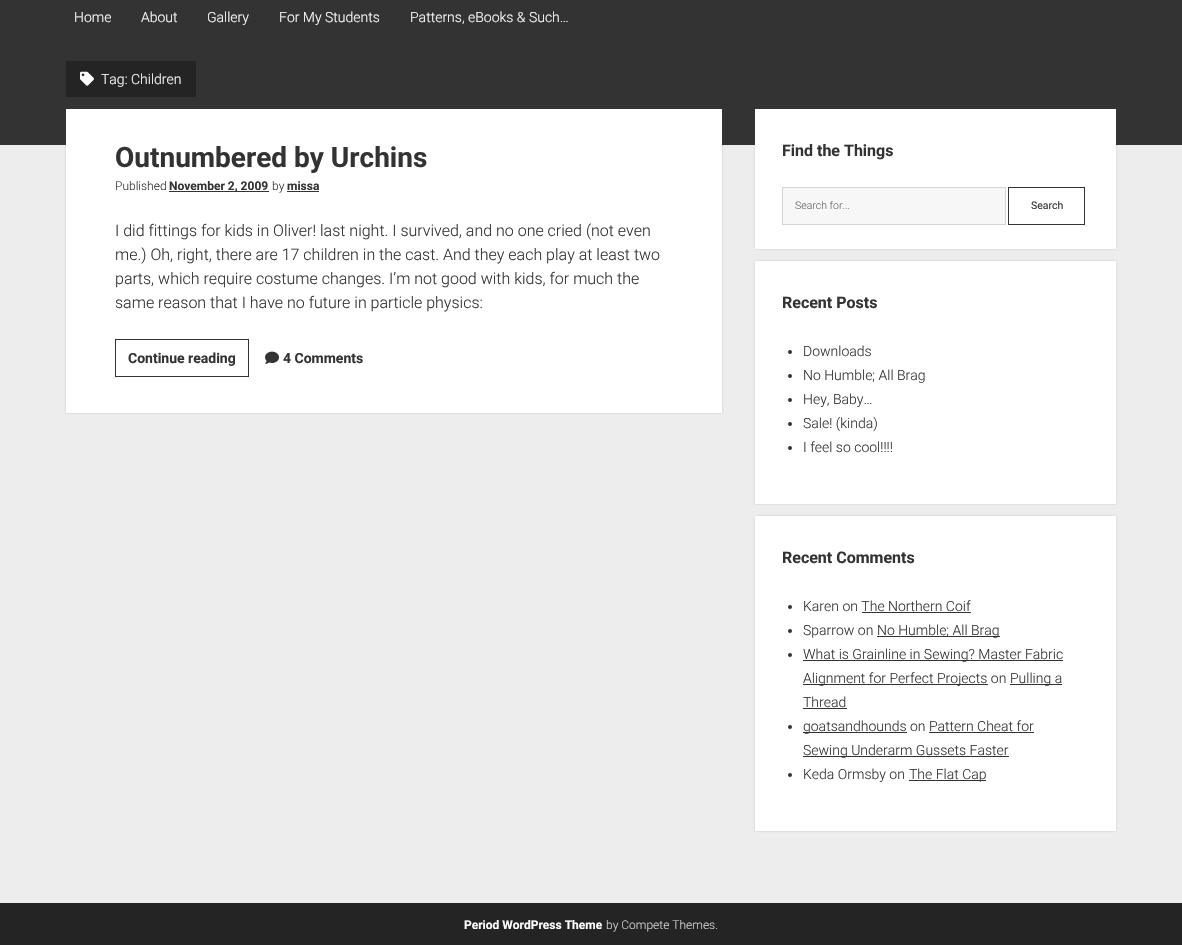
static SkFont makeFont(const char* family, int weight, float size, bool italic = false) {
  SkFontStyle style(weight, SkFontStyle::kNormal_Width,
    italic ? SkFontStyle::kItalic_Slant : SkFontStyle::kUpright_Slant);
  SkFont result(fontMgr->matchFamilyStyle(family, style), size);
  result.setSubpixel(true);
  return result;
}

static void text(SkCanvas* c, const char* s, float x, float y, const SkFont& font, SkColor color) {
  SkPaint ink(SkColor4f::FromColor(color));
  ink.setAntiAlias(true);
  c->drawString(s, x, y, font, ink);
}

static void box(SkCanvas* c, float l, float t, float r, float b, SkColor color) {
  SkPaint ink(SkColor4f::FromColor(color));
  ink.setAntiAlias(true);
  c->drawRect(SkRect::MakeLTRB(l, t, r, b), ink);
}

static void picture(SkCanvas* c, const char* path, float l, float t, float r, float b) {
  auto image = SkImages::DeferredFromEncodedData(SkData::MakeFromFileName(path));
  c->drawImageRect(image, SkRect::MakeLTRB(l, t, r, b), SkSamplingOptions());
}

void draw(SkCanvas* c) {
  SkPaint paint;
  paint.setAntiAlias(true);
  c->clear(0xffededed);
  box(c, 0, 0, 1182, 145, 0xff333333);
  SkFont face1 = makeFont("Roboto", 300, 14);
  text(c, "Home", 74, 22, face1, 0xffffffff);
  text(c, "About", 141, 22, face1, 0xffffffff);
  text(c, "Gallery", 207, 22, face1, 0xffffffff);
  text(c, "For My Students", 279, 22, face1, 0xffffffff);
  text(c, "Patterns, eBooks & Such…", 410, 22, face1, 0xffffffff);
  box(c, 66, 61, 196, 97, 0xff242424);
  picture(c, "img_01.png", 80, 71, 94, 86);
  text(c, "Tag: Children", 101, 84, face1, 0xffffffff);
  paint.setColor(0x333a3a3a);
  paint.setMaskFilter(SkMaskFilter::MakeBlur(kNormal_SkBlurStyle, 1));
  c->drawRect(SkRect::MakeLTRB(66, 109, 722, 413), paint);
  paint.setMaskFilter(nullptr);
  box(c, 66, 109, 722, 413, 0xffffffff);
  SkFont face2 = makeFont("Roboto", 700, 28);
  text(c, "Outnumbered by Urchins", 115, 167, face2, 0xff333333);
  SkFont face3 = makeFont("Roboto", 300, 12);
  text(c, "Published", 115, 190, face3, 0xff333333);
  box(c, 169, 191, 269, 192, 0xff333333);
  SkFont face4 = makeFont("Roboto", 700, 12);
  text(c, "November 2, 2009", 169, 190, face4, 0xff333333);
  text(c, "by", 272, 190, face3, 0xff333333);
  text(c, "missa", 287, 190, face4, 0xff333333);
  box(c, 287, 191, 319, 192, 0xff333333);
  SkFont face5 = makeFont("Roboto", 300, 16);
  text(c, "I did fittings for kids in Oliver! last night. I survived, and no one cried (not even", 115, 236, face5, 0xff333333);
  text(c, "me.) Oh, right, there are 17 children in the cast. And they each play at least two", 115, 260, face5, 0xff333333);
  text(c, "parts, which require costume changes. I’m not good with kids, for much the", 115, 284, face5, 0xff333333);
  text(c, "same reason that I have no future in particle physics:", 115, 308, face5, 0xff333333);
  paint.setStyle(SkPaint::kStroke_Style);
  paint.setStrokeWidth(1);
  paint.setColor(0xff333333);
  c->drawRect(SkRect::MakeLTRB(115.5f, 339.5f, 248.5f, 376.5f), paint);
  SkFont face6 = makeFont("Roboto", 700, 14);
  text(c, "Continue reading", 128, 363, face6, 0xff333333);
  picture(c, "img_02.png", 265, 351, 279, 364);
  text(c, "4 Comments", 283, 363, face6, 0xff333333);
  paint.setStyle(SkPaint::kFill_Style);
  paint.setColor(0x333a3a3a);
  paint.setMaskFilter(SkMaskFilter::MakeBlur(kNormal_SkBlurStyle, 1));
  c->drawRect(SkRect::MakeLTRB(755, 109, 1116, 249), paint);
  paint.setMaskFilter(nullptr);
  box(c, 755, 109, 1116, 249, 0xffffffff);
  SkFont face7 = makeFont("Roboto", 700, 16);
  text(c, "Find the Things", 782, 156, face7, 0xff333333);
  paint.setColor(0xfff7f7f7);
  c->drawRect(SkRect::MakeLTRB(782.5f, 187.5f, 1005.5f, 224.5f), paint);
  paint.setStyle(SkPaint::kStroke_Style);
  paint.setColor(0xffd4d4d4);
  c->drawRect(SkRect::MakeLTRB(782.5f, 187.5f, 1005.5f, 224.5f), paint);
  SkFont face8 = makeFont("Roboto", 300, 10.5f);
  text(c, "Search for...", 795, 209, face8, 0xff666666);
  paint.setColor(0xff333333);
  c->drawRect(SkRect::MakeLTRB(1008.5f, 187.5f, 1084.5f, 224.5f), paint);
  SkFont face9 = makeFont("Roboto", 400, 10.5f);
  text(c, "Search", 1031, 209, face9, 0xff333333);
  paint.setStyle(SkPaint::kFill_Style);
  paint.setColor(0x333a3a3a);
  paint.setMaskFilter(SkMaskFilter::MakeBlur(kNormal_SkBlurStyle, 1));
  c->drawRect(SkRect::MakeLTRB(755, 261, 1116, 504), paint);
  paint.setMaskFilter(nullptr);
  box(c, 755, 261, 1116, 504, 0xffffffff);
  text(c, "Recent Posts", 782, 308, face7, 0xff333333);
  paint.setColor(0xff333333);
  c->drawCircle(790, 352, 2, paint);
  text(c, "Downloads", 803, 356, face1, 0xff333333);
  c->drawCircle(790, 376, 2, paint);
  text(c, "No Humble; All Brag", 803, 380, face1, 0xff333333);
  c->drawCircle(790, 400, 2, paint);
  text(c, "Hey, Baby…", 803, 404, face1, 0xff333333);
  c->drawCircle(790, 424, 2, paint);
  text(c, "Sale! (kinda)", 803, 428, face1, 0xff333333);
  c->drawCircle(790, 448, 2, paint);
  text(c, "I feel so cool!!!!", 803, 452, face1, 0xff333333);
  paint.setColor(0x333a3a3a);
  paint.setMaskFilter(SkMaskFilter::MakeBlur(kNormal_SkBlurStyle, 1));
  c->drawRect(SkRect::MakeLTRB(755, 516, 1116, 831), paint);
  paint.setMaskFilter(nullptr);
  box(c, 755, 516, 1116, 831, 0xffffffff);
  text(c, "Recent Comments", 782, 563, face7, 0xff333333);
  paint.setColor(0xff333333);
  c->drawCircle(790, 607, 2, paint);
  text(c, "Karen on The Northern Coif", 803, 611, face1, 0xff333333);
  box(c, 862, 612, 971, 613, 0xff333333);
  c->drawCircle(790, 631, 2, paint);
  text(c, "Sparrow on", 803, 635, face1, 0xff333333);
  box(c, 877, 636, 1000, 637, 0xff333333);
  text(c, "No Humble; All Brag", 877, 635, face1, 0xff333333);
  c->drawCircle(790, 655, 2, paint);
  box(c, 803, 660, 1063, 661, 0xff333333);
  text(c, "What is Grainline in Sewing? Master Fabric", 803, 659, face1, 0xff333333);
  box(c, 803, 684, 988, 685, 0xff333333);
  text(c, "Alignment for Perfect Projects on", 803, 683, face1, 0xff333333);
  box(c, 1010, 684, 1062, 685, 0xff333333);
  text(c, "Pulling a", 1010, 683, face1, 0xff333333);
  text(c, "Thread", 803, 707, face1, 0xff333333);
  box(c, 803, 708, 847, 709, 0xff333333);
  c->drawCircle(790, 727, 2, paint);
  box(c, 803, 732, 907, 733, 0xff333333);
  text(c, "goatsandhounds on Pattern Cheat for", 803, 731, face1, 0xff333333);
  box(c, 803, 756, 1009, 757, 0xff333333);
  text(c, "Sewing Underarm Gussets Faster", 803, 755, face1, 0xff333333);
  box(c, 929, 732, 1034, 733, 0xff333333);
  c->drawCircle(790, 775, 2, paint);
  text(c, "Keda Ormsby on", 803, 779, face1, 0xff333333);
  box(c, 909, 780, 986, 781, 0xff333333);
  text(c, "The Flat Cap", 909, 779, face1, 0xff333333);
  box(c, 0, 903, 1182, 945, 0xff242424);
  text(c, "Period WordPress Theme", 464, 929, face4, 0xffffffff);
  text(c, "by Compete Themes.", 606, 929, face3, 0xffd4d4d4);
}
